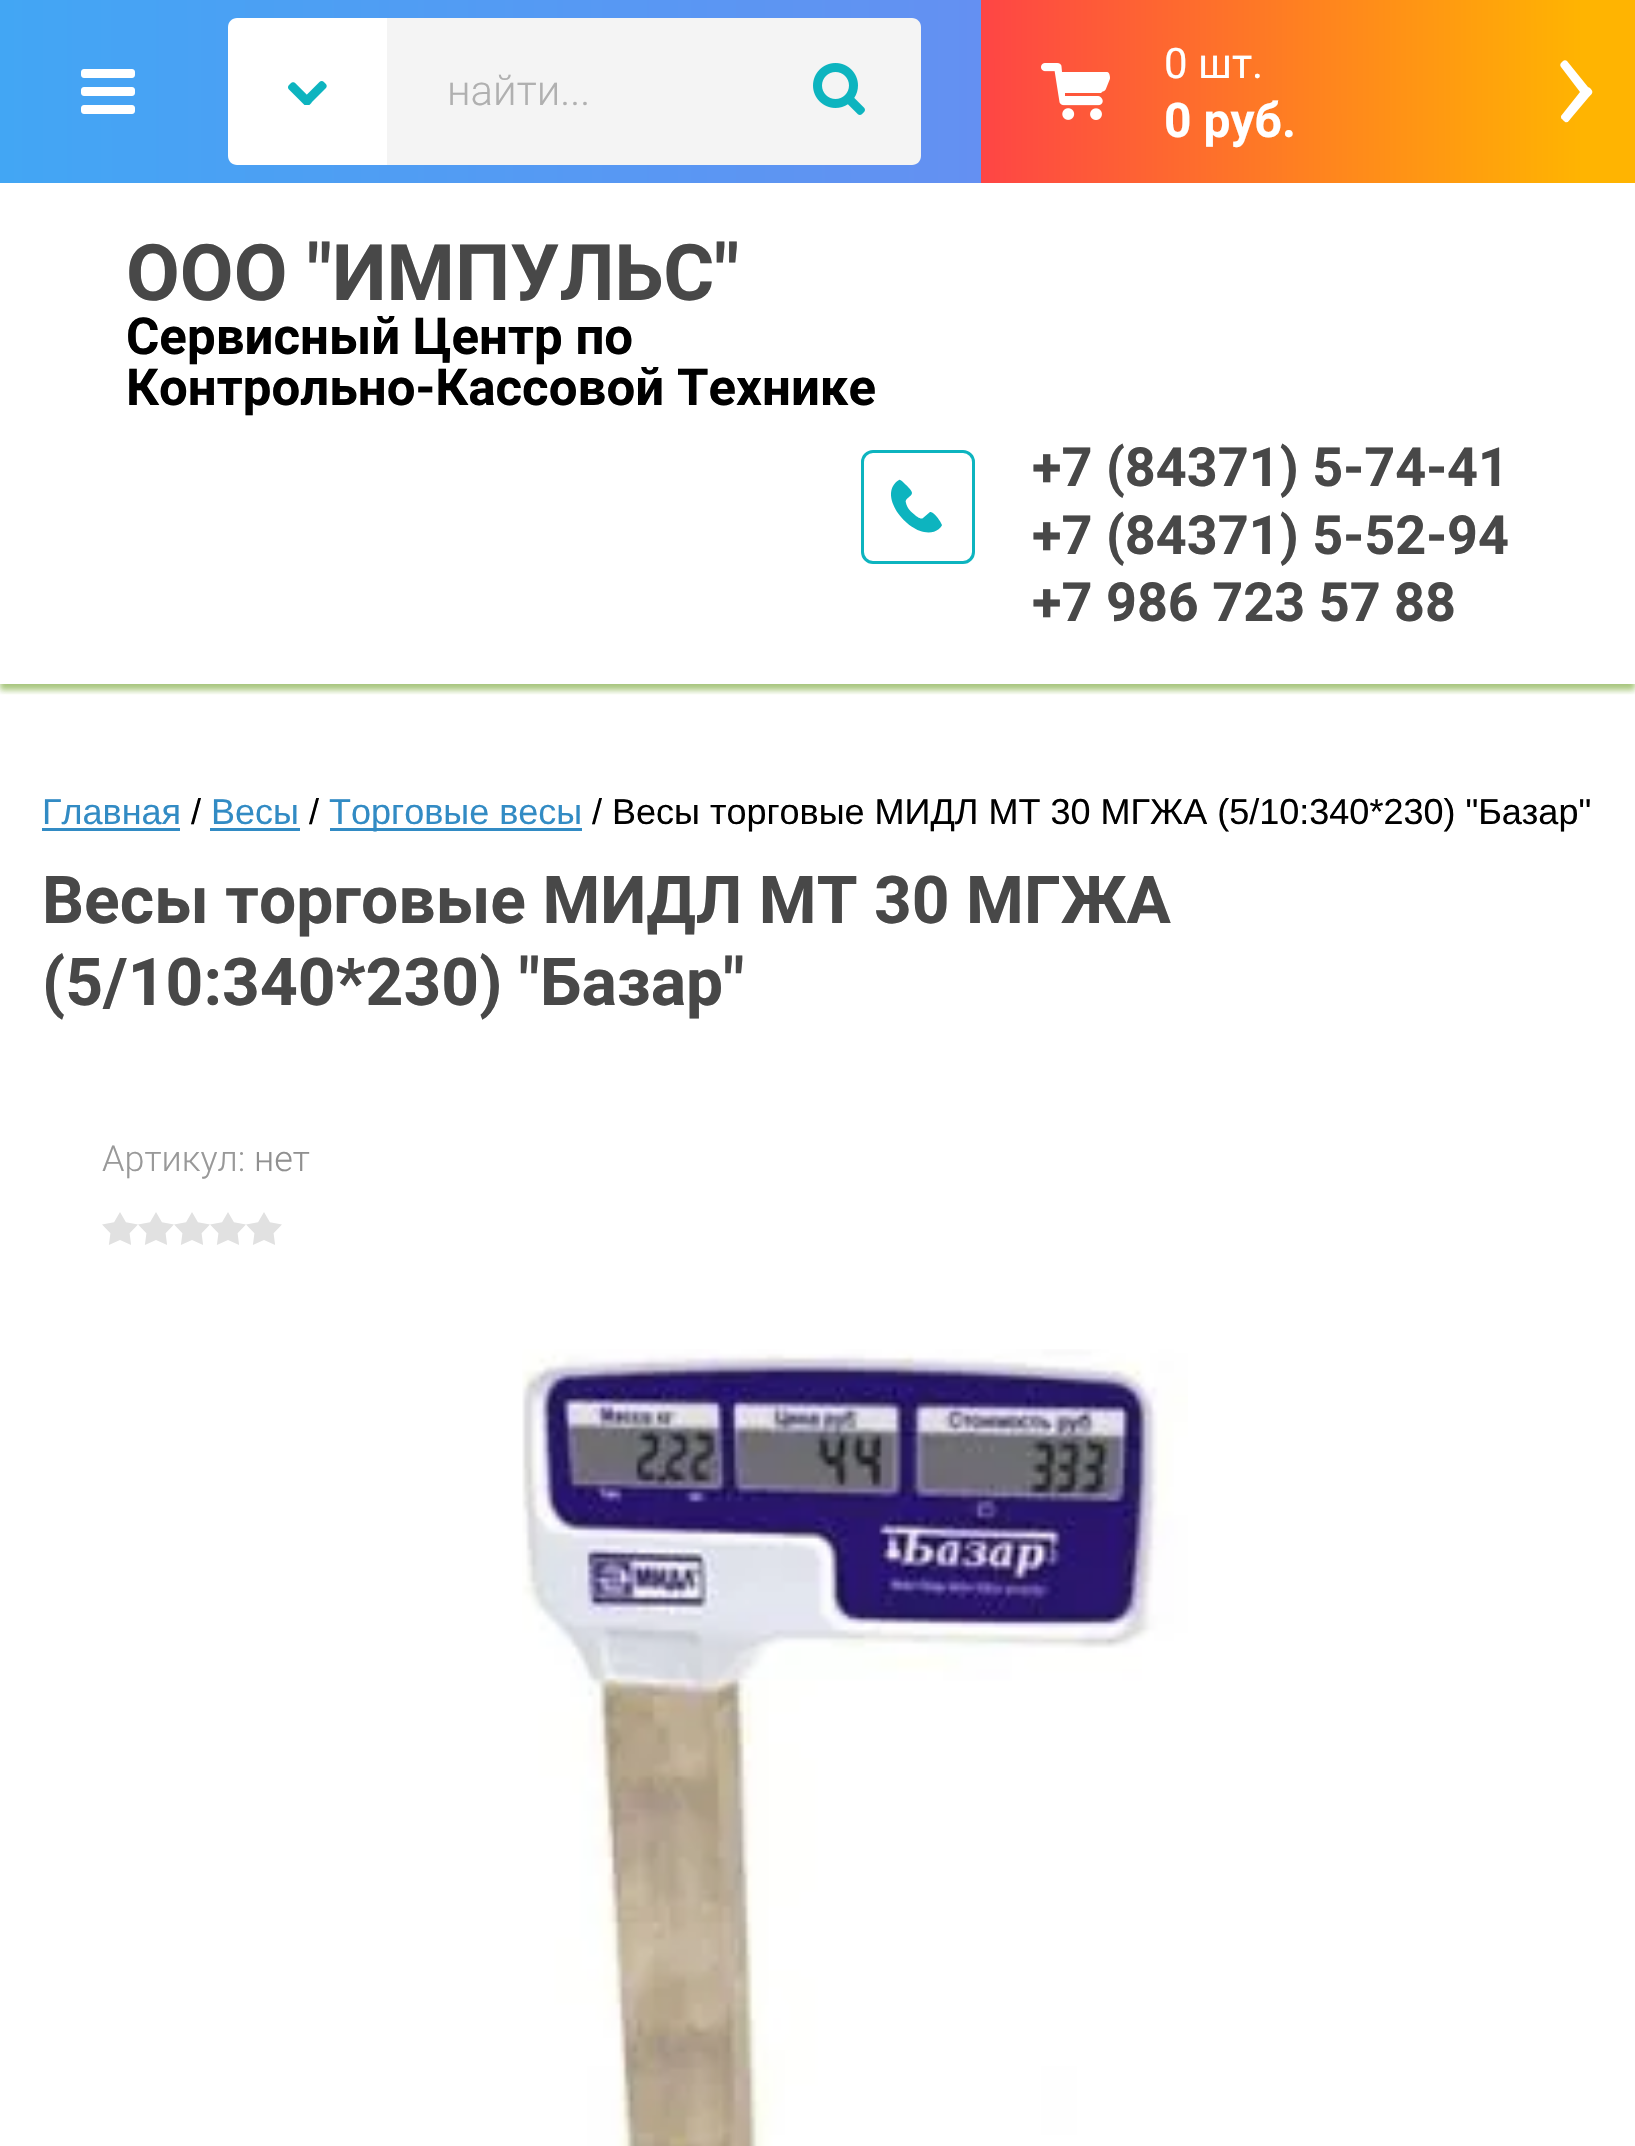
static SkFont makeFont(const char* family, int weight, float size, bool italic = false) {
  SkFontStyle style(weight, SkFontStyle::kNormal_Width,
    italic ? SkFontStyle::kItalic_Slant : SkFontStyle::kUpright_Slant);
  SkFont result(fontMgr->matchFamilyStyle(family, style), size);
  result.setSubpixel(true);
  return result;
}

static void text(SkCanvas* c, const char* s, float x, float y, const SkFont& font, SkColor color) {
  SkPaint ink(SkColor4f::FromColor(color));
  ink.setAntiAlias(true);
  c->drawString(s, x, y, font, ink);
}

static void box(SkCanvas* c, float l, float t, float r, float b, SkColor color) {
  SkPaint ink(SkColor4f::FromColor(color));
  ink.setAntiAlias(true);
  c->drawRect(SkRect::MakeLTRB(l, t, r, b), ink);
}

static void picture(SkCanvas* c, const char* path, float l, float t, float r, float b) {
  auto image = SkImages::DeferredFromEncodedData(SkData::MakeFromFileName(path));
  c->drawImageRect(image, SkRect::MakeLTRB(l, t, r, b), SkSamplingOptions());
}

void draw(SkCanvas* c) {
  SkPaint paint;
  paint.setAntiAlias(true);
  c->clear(0xffffffff);
  c->save();
  c->clipRect(SkRect::MakeLTRB(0, 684, 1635, 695));
  paint.setColor(0x85abf146);
  paint.setMaskFilter(SkMaskFilter::MakeBlur(kNormal_SkBlurStyle, 3));
  c->drawRect(SkRect::MakeLTRB(0, 6, 1635, 690), paint);
  paint.setMaskFilter(nullptr);
  c->restore();
  c->save();
  c->clipRect(SkRect::MakeLTRB(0, 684, 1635, 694));
  paint.setColor(0x33000000);
  paint.setMaskFilter(SkMaskFilter::MakeBlur(kNormal_SkBlurStyle, 3));
  c->drawRect(SkRect::MakeLTRB(0, 186, 1635, 690), paint);
  paint.setMaskFilter(nullptr);
  c->restore();
  {
    const SkColor colors[] = {0xff42a6f4, 0xff6490f2};
    const float stops[] = {0, 0.6f};
    const SkPoint ends[] = {{0, 92}, {1635, 91}};
    paint.setShader(SkGradientShader::MakeLinear(ends, colors, stops, 2, SkTileMode::kClamp));
    paint.setAlpha(255);
  }
  c->drawRect(SkRect::MakeLTRB(0, 0, 981, 183), paint);
  picture(c, "img_01.png", 81, 69, 135, 114);
  paint.setShader(nullptr);
  paint.setColor(0xffffffff);
  c->drawPath(SkPathBuilder().moveTo(237, 18).lineTo(387, 18).lineTo(387, 165).lineTo(237, 165).cubicTo(232, 165, 228, 161, 228, 156).lineTo(228, 27).cubicTo(228, 22, 232, 18, 237, 18).close().detach(), paint);
  picture(c, "img_02.png", 288, 81, 327, 105);
  paint.setColor(0xfff4f4f4);
  c->drawPath(SkPathBuilder().moveTo(387, 18).lineTo(912, 18).cubicTo(917, 18, 921, 22, 921, 27).lineTo(921, 156).cubicTo(921, 161, 917, 165, 912, 165).lineTo(387, 165).close().detach(), paint);
  SkFont face1 = makeFont("Roboto", 300, 42);
  text(c, "найти...", 447, 105, face1, 0xffb0b0b0);
  picture(c, "img_03.png", 813, 63, 865, 115);
  {
    const SkColor colors[] = {0xfffe4545, 0xffffb401};
    const float stops[] = {0, 0.92f};
    const SkPoint ends[] = {{981, 92}, {1635, 91}};
    paint.setShader(SkGradientShader::MakeLinear(ends, colors, stops, 2, SkTileMode::kClamp));
    paint.setAlpha(255);
  }
  c->drawRect(SkRect::MakeLTRB(981, 0, 1635, 183), paint);
  picture(c, "img_04.png", 1041, 63, 1110, 120);
  SkFont face2 = makeFont("Roboto", 400, 42);
  text(c, "0 шт.", 1164, 78, face2, 0xffffffff);
  paint.setShader(nullptr);
  paint.setColor(0xffffffff);
  c->drawPath(SkPathBuilder().moveTo(1567, 61).lineTo(1588, 87).lineTo(1590, 88).cubicTo(1595, 93, 1591, 94, 1588, 98).lineTo(1572, 117).cubicTo(1568, 122, 1567, 125, 1562, 119).cubicTo(1561, 119, 1561, 117, 1561, 116).lineTo(1580, 92).lineTo(1561, 67).cubicTo(1560, 66, 1560, 64, 1561, 63).lineTo(1563, 61).cubicTo(1564, 60, 1566, 60, 1567, 61).close().detach(), paint);
  SkFont face3 = makeFont("Roboto", 700, 48);
  text(c, "0 руб.", 1164, 137, face3, 0xffffffff);
  SkFont face4 = makeFont("Roboto", 700, 78);
  text(c, "ООО \"ИМПУЛЬС\"", 126, 300, face4, 0xff484848);
  SkFont face5 = makeFont("Roboto", 700, 51);
  text(c, "Сервисный Центр по", 126, 354, face5, 0xff000000);
  text(c, "Контрольно-Кассовой Технике", 126, 405, face5, 0xff000000);
  paint.setStyle(SkPaint::kStroke_Style);
  paint.setStrokeWidth(3);
  paint.setColor(0xff0db4bf);
  c->drawRoundRect(SkRect::MakeLTRB(862.5f, 451.5f, 973.5f, 562.5f), 10.5f, 10.5f, paint);
  paint.setStyle(SkPaint::kFill_Style);
  c->drawPath(SkPathBuilder().moveTo(899, 480).cubicTo(900, 479, 904, 483, 904, 483).cubicTo(906, 485, 912, 490, 912, 493).cubicTo(912, 497, 904, 498, 906, 503).cubicTo(907, 508, 911, 512, 915, 515).cubicTo(916, 516, 921, 520, 923, 518).lineTo(930, 512).cubicTo(934, 511, 941, 522, 942, 525).cubicTo(942, 526, 939, 529, 939, 529).cubicTo(917, 546, 873, 496, 899, 480).close().detach(), paint);
  SkFont face6 = makeFont("Roboto", 700, 54);
  text(c, "+7 (84371) 5-74-41", 1032, 486, face6, 0xff484848);
  text(c, "+7 (84371) 5-52-94", 1032, 554, face6, 0xff484848);
  text(c, "+7 986 723 57 88", 1032, 621, face6, 0xff484848);
  SkFont face7 = makeFont("Liberation Sans", 400, 36);
  text(c, "Главная", 42, 824, face7, 0xff328bc4);
  box(c, 42, 828, 180, 831, 0xff328bc4);
  text(c, "/", 191, 824, face7, 0xff000000);
  text(c, "Весы", 211, 824, face7, 0xff328bc4);
  box(c, 210, 828, 300, 831, 0xff328bc4);
  text(c, "/", 309, 824, face7, 0xff000000);
  box(c, 330, 828, 582, 831, 0xff328bc4);
  text(c, "Торговые весы", 329, 824, face7, 0xff328bc4);
  text(c, "/ Весы торговые МИДЛ МТ 30 МГЖА (5/10:340*230) \"Базар\"", 592, 824, face7, 0xff000000);
  SkFont face8 = makeFont("Roboto", 700, 66);
  text(c, "Весы торговые МИДЛ МТ 30 МГЖА", 42, 923, face8, 0xff484848);
  text(c, "(5/10:340*230) \"Базар\"", 42, 1005, face8, 0xff484848);
  SkFont face9 = makeFont("Roboto", 300, 36);
  text(c, "Артикул:", 102, 1171, face9, 0xff999999);
  text(c, "нет", 254, 1171, face9, 0xff909090);
  picture(c, "img_05.png", 102, 1212, 282, 1245);
  picture(c, "img_06.png", 522, 1349, 1188, 2146);
}
